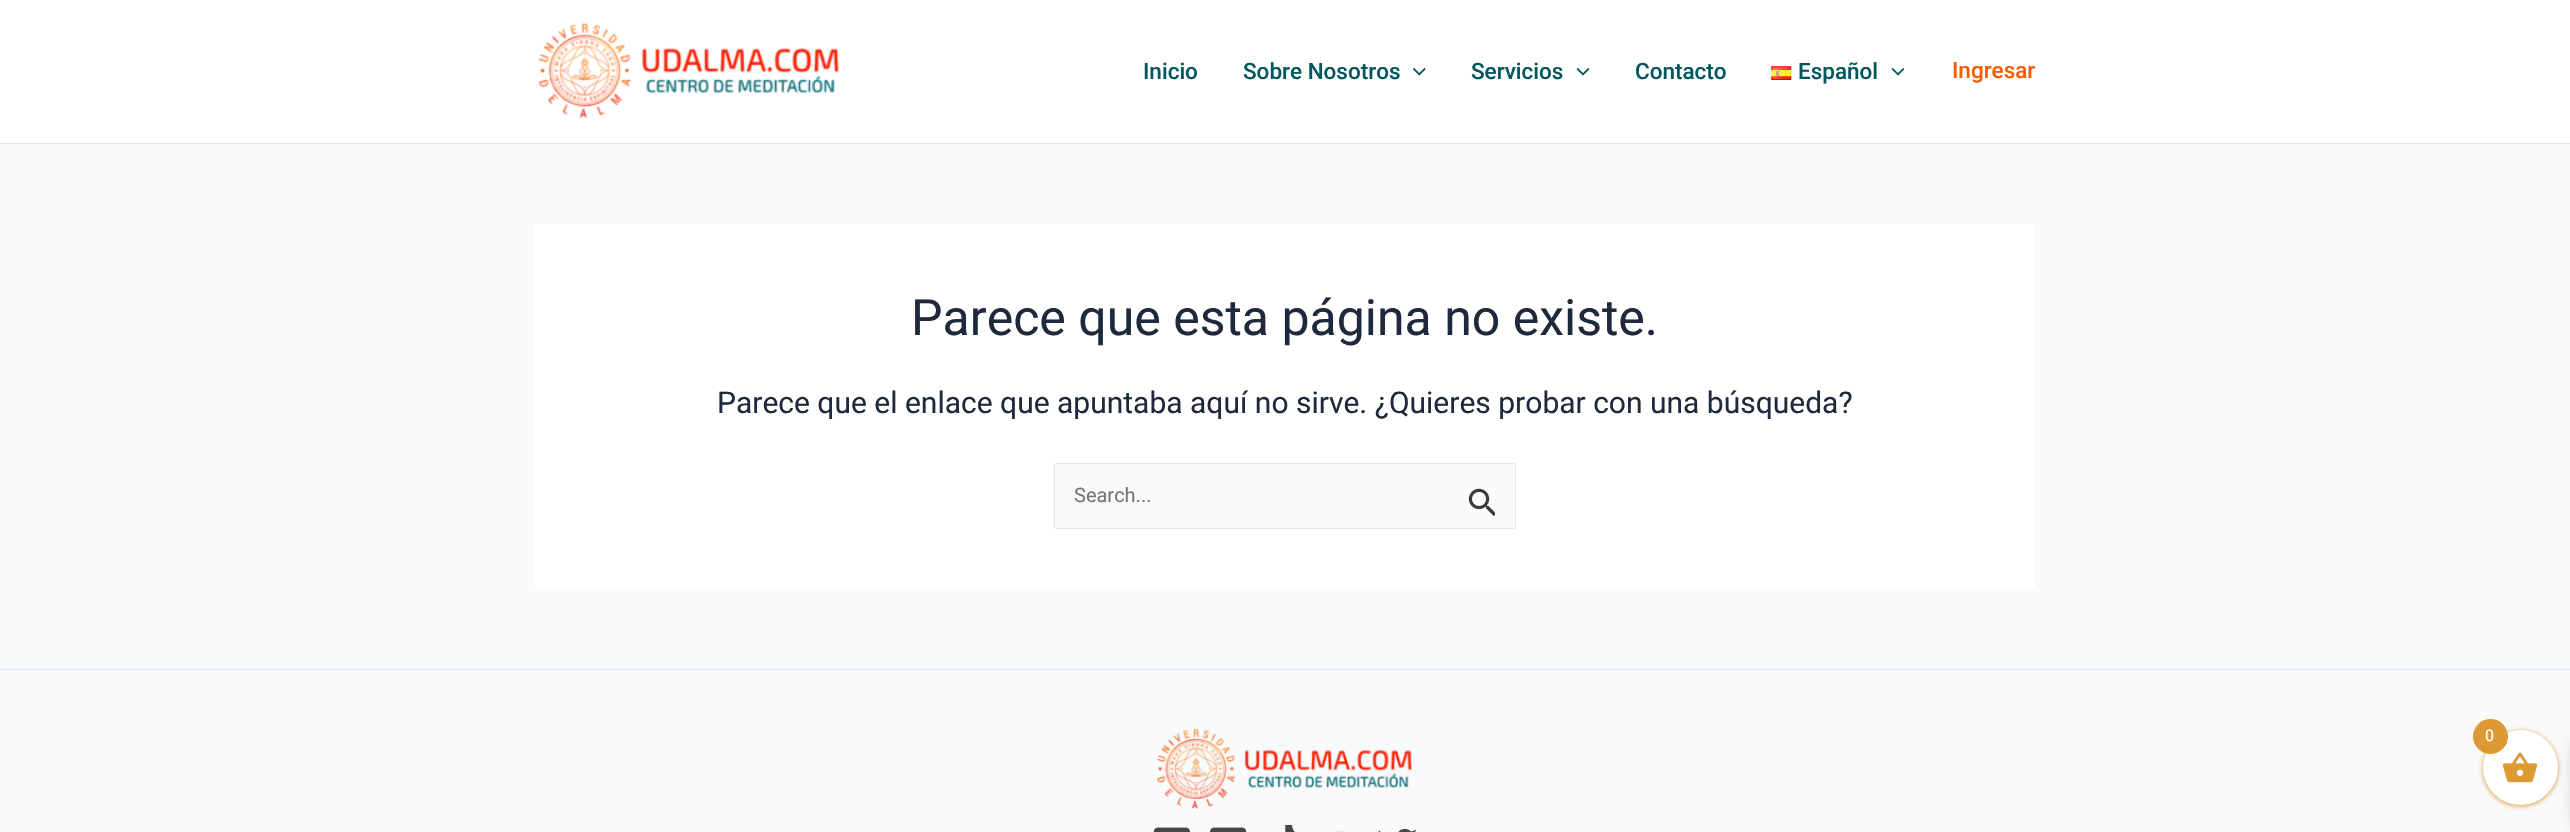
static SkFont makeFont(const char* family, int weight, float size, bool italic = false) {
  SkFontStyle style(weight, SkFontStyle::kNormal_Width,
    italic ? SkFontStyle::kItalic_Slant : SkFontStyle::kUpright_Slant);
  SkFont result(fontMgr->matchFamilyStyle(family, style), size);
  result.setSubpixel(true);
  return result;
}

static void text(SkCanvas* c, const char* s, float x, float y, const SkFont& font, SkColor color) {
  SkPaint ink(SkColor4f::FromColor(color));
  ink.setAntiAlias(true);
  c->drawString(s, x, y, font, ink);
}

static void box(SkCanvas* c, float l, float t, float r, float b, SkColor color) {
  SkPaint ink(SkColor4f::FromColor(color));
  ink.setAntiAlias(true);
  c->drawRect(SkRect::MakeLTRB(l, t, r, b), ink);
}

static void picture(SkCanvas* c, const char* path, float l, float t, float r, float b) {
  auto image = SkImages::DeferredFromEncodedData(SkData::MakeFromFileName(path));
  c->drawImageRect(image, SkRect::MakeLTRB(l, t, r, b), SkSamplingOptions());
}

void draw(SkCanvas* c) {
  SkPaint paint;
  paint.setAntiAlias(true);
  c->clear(0xfff9fafb);
  box(c, 0, 0, 2570, 143, 0xffffffff);
  box(c, 0, 143, 2570, 144, 0xffe2e8f0);
  picture(c, "img_01.png", 538, 22, 839, 118);
  SkFont face1 = makeFont("Roboto", 500, 22.5f);
  text(c, "Inicio", 1143, 79, face1, 0xff00575d);
  text(c, "Sobre Nosotros", 1243, 79, face1, 0xff00575d);
  picture(c, "img_02.png", 1413, 68, 1426, 76);
  text(c, "Servicios", 1471, 79, face1, 0xff00575d);
  picture(c, "img_03.png", 1576, 68, 1590, 76);
  text(c, "Contacto", 1635, 79, face1, 0xff00575d);
  picture(c, "img_04.png", 1771, 66, 1792, 80);
  text(c, "Español", 1798, 79, face1, 0xff00575d);
  picture(c, "img_05.png", 1891, 68, 1904, 76);
  text(c, "Ingresar", 1952, 78, face1, 0xfff85b00);
  box(c, 535, 224, 2035, 589, 0xffffffff);
  SkFont face2 = makeFont("Roboto", 400, 50);
  text(c, "Parece que esta página no existe.", 911, 335, face2, 0xff1e293b);
  SkFont face3 = makeFont("Roboto", 400, 30);
  text(c, "Parece que el enlace que apuntaba aquí no sirve. ¿Quieres probar con una búsqueda?", 717, 413, face3, 0xff1e293b);
  paint.setColor(0xfffafafa);
  c->drawRoundRect(SkRect::MakeLTRB(1054.5f, 463.5f, 1515.5f, 528.5f), 2, 2, paint);
  paint.setStyle(SkPaint::kStroke_Style);
  paint.setStrokeWidth(1);
  paint.setColor(0xffe2e8f0);
  c->drawRoundRect(SkRect::MakeLTRB(1054.5f, 463.5f, 1515.5f, 528.5f), 2, 2, paint);
  SkFont face4 = makeFont("Roboto", 400, 20);
  text(c, "Search...", 1074, 502, face4, 0xff757575);
  picture(c, "img_06.png", 1468, 488, 1495, 516);
  box(c, 0, 669, 2570, 670, 0xffe2e8f0);
  picture(c, "img_07.png", 1156, 728, 1412, 809);
  picture(c, "img_08.png", 1153, 827, 1190, 832);
  picture(c, "img_09.png", 1210, 827, 1247, 832);
  picture(c, "img_10.png", 1285, 825, 1295, 832);
  picture(c, "img_11.png", 1335, 831, 1347, 832);
  picture(c, "img_12.png", 1378, 828, 1417, 832);
  paint.setStyle(SkPaint::kFill_Style);
  paint.setColor(0xffdd9933);
  paint.setMaskFilter(SkMaskFilter::MakeBlur(kNormal_SkBlurStyle, 2.5f));
  c->drawRoundRect(SkRect::MakeLTRB(2483, 731, 2558, 806), 37.5f, 37.5f, paint);
  paint.setMaskFilter(nullptr);
  paint.setColor(0x1a000000);
  paint.setMaskFilter(SkMaskFilter::MakeBlur(kNormal_SkBlurStyle, 6));
  c->drawRect(SkRect::MakeLTRB(2570, 741, 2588, 826), paint);
  paint.setMaskFilter(nullptr);
  paint.setColor(0xffffffff);
  c->drawCircle(2520.5f, 767.5f, 37.5f, paint);
  picture(c, "img_13.png", 2502, 752, 2538, 783);
  paint.setColor(0xffdd9933);
  c->drawCircle(2490.5f, 736.5f, 17.5f, paint);
  SkFont face5 = makeFont("Roboto", 400, 16);
  text(c, "0", 2485, 741, face5, 0xffffffff);
}
